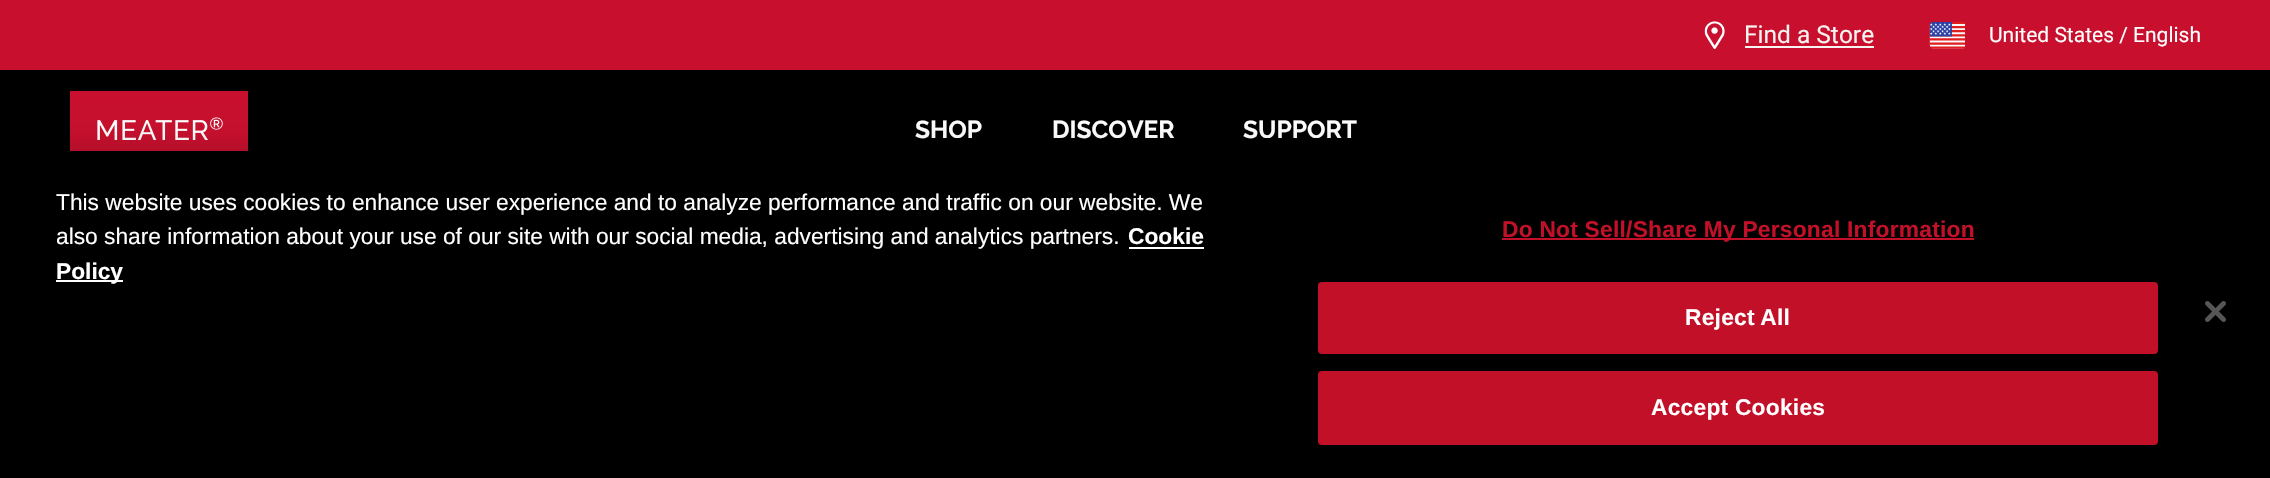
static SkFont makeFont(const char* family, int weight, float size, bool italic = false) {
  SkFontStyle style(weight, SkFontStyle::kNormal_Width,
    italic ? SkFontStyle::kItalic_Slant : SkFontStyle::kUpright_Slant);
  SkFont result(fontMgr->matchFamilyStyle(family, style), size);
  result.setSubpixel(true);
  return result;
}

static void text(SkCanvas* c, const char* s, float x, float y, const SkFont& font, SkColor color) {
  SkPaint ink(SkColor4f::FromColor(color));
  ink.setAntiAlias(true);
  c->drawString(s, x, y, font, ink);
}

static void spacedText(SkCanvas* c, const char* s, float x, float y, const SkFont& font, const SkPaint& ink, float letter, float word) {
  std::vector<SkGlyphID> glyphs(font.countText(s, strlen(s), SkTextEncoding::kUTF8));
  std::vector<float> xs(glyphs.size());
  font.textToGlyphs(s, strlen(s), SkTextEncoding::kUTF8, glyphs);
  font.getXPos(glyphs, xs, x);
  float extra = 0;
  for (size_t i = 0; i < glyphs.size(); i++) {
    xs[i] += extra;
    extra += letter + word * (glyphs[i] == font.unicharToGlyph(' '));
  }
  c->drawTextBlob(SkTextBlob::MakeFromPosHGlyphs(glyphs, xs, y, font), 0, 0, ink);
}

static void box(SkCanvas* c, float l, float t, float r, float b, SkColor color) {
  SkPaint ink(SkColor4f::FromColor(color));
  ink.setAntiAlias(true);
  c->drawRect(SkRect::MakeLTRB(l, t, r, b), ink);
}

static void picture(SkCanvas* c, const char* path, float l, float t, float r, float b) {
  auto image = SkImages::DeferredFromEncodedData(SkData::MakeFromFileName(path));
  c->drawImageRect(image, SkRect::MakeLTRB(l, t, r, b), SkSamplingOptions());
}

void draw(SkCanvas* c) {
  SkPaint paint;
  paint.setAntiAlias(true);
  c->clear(0xff000000);
  box(c, 0, 0, 2270, 70, 0xffc8102e);
  picture(c, "img_01.png", 1704, 21, 1725, 49);
  SkFont face1 = makeFont("Roboto", 400, 24.5f);
  text(c, "Find a Store", 1744, 43, face1, 0xfff5f4f1);
  box(c, 1745, 46, 1874, 48, 0xfff5f4f1);
  picture(c, "img_02.png", 1929, 22, 1965, 49);
  SkFont face2 = makeFont("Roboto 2", 400, 21);
  text(c, "United States / English", 1989, 42, face2, 0xffffffff);
  picture(c, "img_03.png", 70, 91, 248, 151);
  SkFont face3 = makeFont("Raleway", 700, 24.5f);
  text(c, "SHOP", 915, 138, face3, 0xffffffff);
  text(c, "DISCOVER", 1052, 138, face3, 0xffffffff);
  text(c, "SUPPORT", 1243, 138, face3, 0xffffffff);
  paint.setColor(0x33000000);
  paint.setMaskFilter(SkMaskFilter::MakeBlur(kNormal_SkBlurStyle, 16));
  c->drawRect(SkRect::MakeLTRB(0, 151, 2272, 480), paint);
  paint.setMaskFilter(nullptr);
  SkFont face4 = makeFont("Liberation Sans", 400, 22.75f);
  text(c, "This website uses cookies to enhance user experience and to analyze performance and traffic on our website. We", 56, 210, face4, 0xffffffff);
  text(c, "also share information about your use of our site with our social media, advertising and analytics partners.", 56, 244, face4, 0xffffffff);
  SkFont face5 = makeFont("Liberation Sans", 700, 22.75f);
  text(c, "Cookie", 1128, 244, face5, 0xffffffff);
  box(c, 1129, 247, 1204, 249, 0xffffffff);
  box(c, 56, 280, 123, 282, 0xffffffff);
  text(c, "Policy", 56, 279, face5, 0xffffffff);
  box(c, 1502, 238, 1974, 240, 0xffc21028);
  paint.setColor(0xffc21028);
  spacedText(c, "Do Not Sell/Share My Personal Information", 1502, 237, face5, paint, 0.25f, 0);
  c->drawRoundRect(SkRect::MakeLTRB(1319, 283, 2157, 353), 3, 3, paint);
  paint.setStyle(SkPaint::kStroke_Style);
  paint.setStrokeWidth(2);
  c->drawRoundRect(SkRect::MakeLTRB(1319, 283, 2157, 353), 3, 3, paint);
  paint.setStyle(SkPaint::kFill_Style);
  paint.setColor(0xffffffff);
  spacedText(c, "Reject All", 1685, 325, face5, paint, 0.25f, -1);
  paint.setColor(0xffc21028);
  c->drawRoundRect(SkRect::MakeLTRB(1319, 372, 2157, 444), 3, 3, paint);
  paint.setStyle(SkPaint::kStroke_Style);
  c->drawRoundRect(SkRect::MakeLTRB(1319, 372, 2157, 444), 3, 3, paint);
  paint.setStyle(SkPaint::kFill_Style);
  paint.setColor(0xffffffff);
  spacedText(c, "Accept Cookies", 1651, 415, face5, paint, 0.25f, 0);
  picture(c, "img_04.png", 2205, 301, 2226, 322);
}
